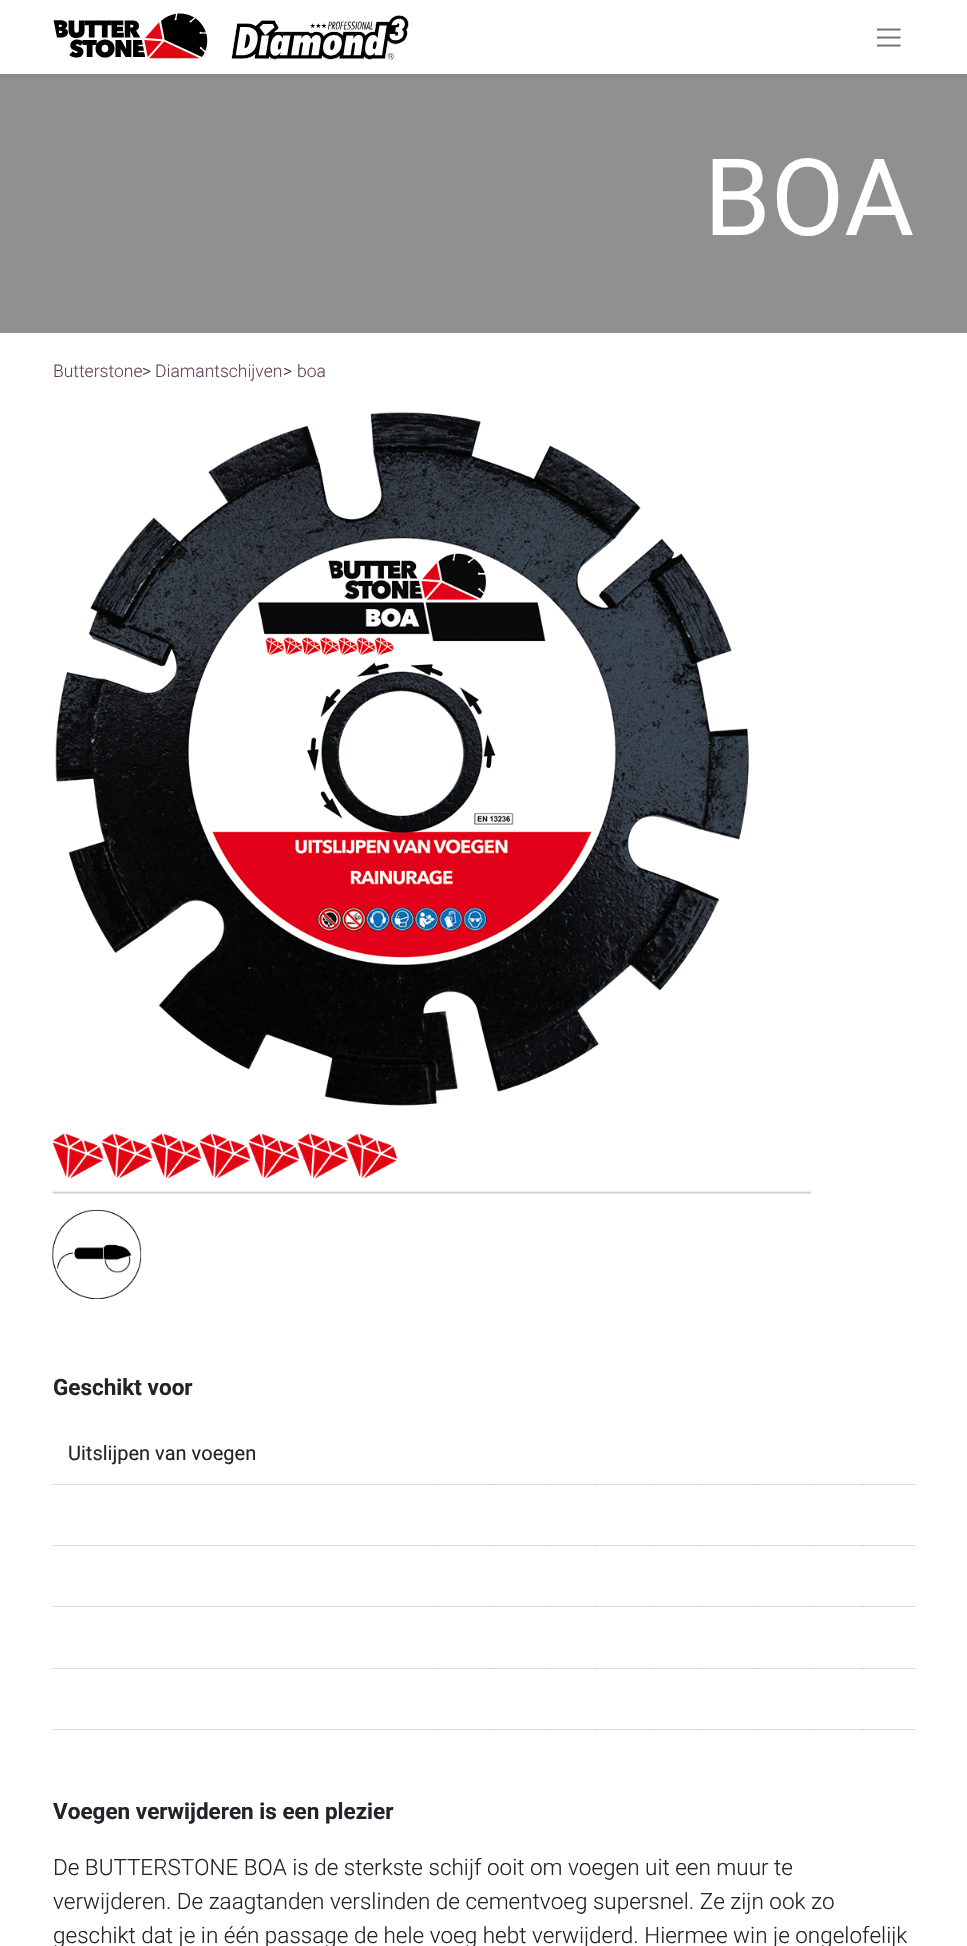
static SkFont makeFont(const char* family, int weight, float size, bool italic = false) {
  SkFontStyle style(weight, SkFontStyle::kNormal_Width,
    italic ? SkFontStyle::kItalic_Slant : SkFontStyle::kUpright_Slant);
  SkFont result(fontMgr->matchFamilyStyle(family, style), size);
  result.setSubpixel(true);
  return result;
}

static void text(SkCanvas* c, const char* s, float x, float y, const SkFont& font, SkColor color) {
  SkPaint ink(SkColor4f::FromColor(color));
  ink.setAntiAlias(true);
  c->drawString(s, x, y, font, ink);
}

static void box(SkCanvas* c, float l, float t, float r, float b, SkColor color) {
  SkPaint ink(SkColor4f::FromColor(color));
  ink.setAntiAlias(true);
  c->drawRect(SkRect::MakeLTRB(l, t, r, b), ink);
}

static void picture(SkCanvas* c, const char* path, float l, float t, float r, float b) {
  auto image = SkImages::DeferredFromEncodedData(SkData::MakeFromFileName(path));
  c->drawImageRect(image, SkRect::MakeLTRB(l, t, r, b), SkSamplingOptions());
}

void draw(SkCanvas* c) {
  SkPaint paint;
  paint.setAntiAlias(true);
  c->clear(0xffffffff);
  box(c, 53, 1484, 916, 1485, 0xffdededf);
  box(c, 438, 1484, 439, 1485, 0xffc2c2c4);
  box(c, 490, 1484, 491, 1485, 0xffc2c2c4);
  box(c, 544, 1484, 545, 1485, 0xffc2c2c4);
  box(c, 596, 1484, 598, 1485, 0xffc2c2c4);
  box(c, 649, 1484, 650, 1485, 0xffc2c2c4);
  box(c, 703, 1484, 704, 1485, 0xffc2c2c4);
  box(c, 755, 1484, 756, 1485, 0xffc2c2c4);
  box(c, 809, 1484, 810, 1485, 0xffc2c2c4);
  box(c, 53, 1545, 916, 1546, 0xffdededf);
  box(c, 438, 1545, 439, 1546, 0xffc2c2c4);
  box(c, 490, 1545, 491, 1546, 0xffc2c2c4);
  box(c, 544, 1545, 545, 1546, 0xffc2c2c4);
  box(c, 596, 1545, 598, 1546, 0xffc2c2c4);
  box(c, 649, 1545, 650, 1546, 0xffc2c2c4);
  box(c, 703, 1545, 704, 1546, 0xffc2c2c4);
  box(c, 755, 1545, 756, 1546, 0xffc2c2c4);
  box(c, 809, 1545, 810, 1546, 0xffc2c2c4);
  box(c, 53, 1606, 916, 1607, 0xffdededf);
  box(c, 438, 1606, 439, 1607, 0xffc2c2c4);
  box(c, 490, 1606, 491, 1607, 0xffc2c2c4);
  box(c, 544, 1606, 545, 1607, 0xffc2c2c4);
  box(c, 596, 1606, 598, 1607, 0xffc2c2c4);
  box(c, 649, 1606, 650, 1607, 0xffc2c2c4);
  box(c, 703, 1606, 704, 1607, 0xffc2c2c4);
  box(c, 755, 1606, 756, 1607, 0xffc2c2c4);
  box(c, 809, 1606, 810, 1607, 0xffc2c2c4);
  box(c, 53, 1668, 916, 1669, 0xffdededf);
  box(c, 438, 1668, 439, 1669, 0xffc2c2c4);
  box(c, 490, 1668, 491, 1669, 0xffc2c2c4);
  box(c, 544, 1668, 545, 1669, 0xffc2c2c4);
  box(c, 596, 1668, 598, 1669, 0xffc2c2c4);
  box(c, 649, 1668, 650, 1669, 0xffc2c2c4);
  box(c, 703, 1668, 704, 1669, 0xffc2c2c4);
  box(c, 755, 1668, 756, 1669, 0xffc2c2c4);
  box(c, 809, 1668, 810, 1669, 0xffc2c2c4);
  box(c, 53, 1729, 916, 1730, 0xffdededf);
  box(c, 438, 1729, 439, 1730, 0xffc2c2c4);
  box(c, 490, 1729, 491, 1730, 0xffc2c2c4);
  box(c, 544, 1729, 545, 1730, 0xffc2c2c4);
  box(c, 596, 1729, 598, 1730, 0xffc2c2c4);
  box(c, 649, 1729, 650, 1730, 0xffc2c2c4);
  box(c, 703, 1729, 704, 1730, 0xffc2c2c4);
  box(c, 755, 1729, 756, 1730, 0xffc2c2c4);
  box(c, 809, 1729, 810, 1730, 0xffc2c2c4);
  box(c, 0, 74, 967, 333, 0xff909090);
  paint.setColor(0x1a000000);
  paint.setMaskFilter(SkMaskFilter::MakeBlur(kNormal_SkBlurStyle, 2));
  c->drawRect(SkRect::MakeLTRB(0, 1, 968, 75), paint);
  paint.setMaskFilter(nullptr);
  box(c, 0, 0, 967, 74, 0xffffffff);
  picture(c, "img_01.png", 53, 13, 409, 60);
  picture(c, "img_02.png", 876, 28, 901, 47);
  SkFont face1 = makeFont("Roboto", 400, 107);
  text(c, "BOA", 704, 235, face1, 0xffffffff);
  SkFont face2 = makeFont("Roboto", 300, 17.5f);
  text(c, "Butterstone", 53, 377, face2, 0xff65435c);
  text(c, ">", 142, 377, face2, 0xff212529);
  text(c, "Diamantschijven", 155, 377, face2, 0xff65435c);
  text(c, ">", 283, 377, face2, 0xff212529);
  text(c, "boa", 297, 377, face2, 0xff65435c);
  picture(c, "img_03.png", 55, 412, 749, 1106);
  picture(c, "img_04.png", 52, 1133, 812, 1299);
  SkFont face3 = makeFont("Roboto", 700, 22.5f);
  text(c, "Geschikt voor", 53, 1395, face3, 0xff212529);
  SkFont face4 = makeFont("Roboto", 400, 20);
  text(c, "Uitslijpen van voegen", 68, 1460, face4, 0xff212529);
  box(c, 861, 1484, 863, 1485, 0xffc2c2c4);
  box(c, 861, 1545, 863, 1546, 0xffc2c2c4);
  box(c, 861, 1606, 863, 1607, 0xffc2c2c4);
  box(c, 861, 1668, 863, 1669, 0xffc2c2c4);
  box(c, 861, 1729, 863, 1730, 0xffc2c2c4);
  text(c, "Voegen verwijderen is een plezier", 53, 1819, face3, 0xff212529);
  SkFont face5 = makeFont("Roboto", 300, 22.5f);
  text(c, "De BUTTERSTONE BOA is de sterkste schijf ooit om voegen uit een muur te", 53, 1875, face5, 0xff212529);
  text(c, "verwijderen. De zaagtanden verslinden de cementvoeg supersnel. Ze zijn ook zo", 53, 1909, face5, 0xff212529);
  text(c, "geschikt dat je in één passage de hele voeg hebt verwijderd. Hiermee win je ongelofelijk", 53, 1943, face5, 0xff212529);
}
